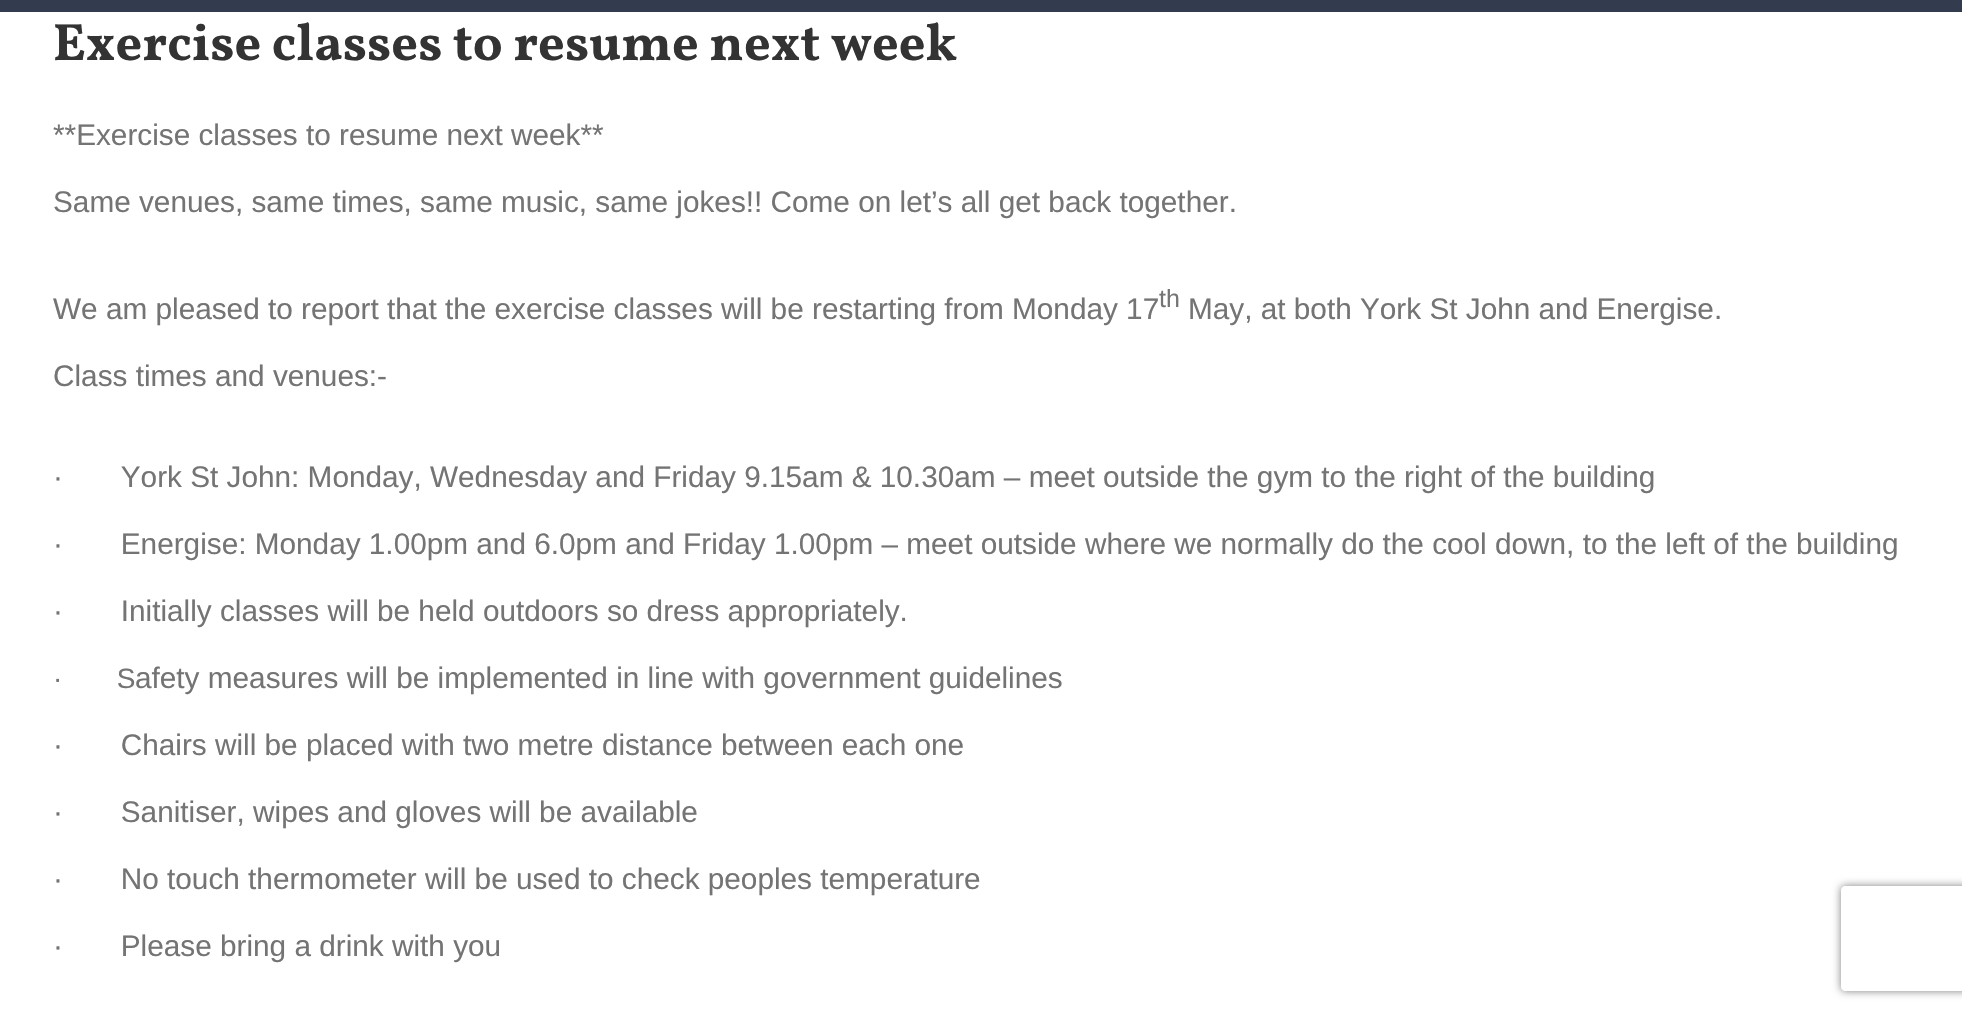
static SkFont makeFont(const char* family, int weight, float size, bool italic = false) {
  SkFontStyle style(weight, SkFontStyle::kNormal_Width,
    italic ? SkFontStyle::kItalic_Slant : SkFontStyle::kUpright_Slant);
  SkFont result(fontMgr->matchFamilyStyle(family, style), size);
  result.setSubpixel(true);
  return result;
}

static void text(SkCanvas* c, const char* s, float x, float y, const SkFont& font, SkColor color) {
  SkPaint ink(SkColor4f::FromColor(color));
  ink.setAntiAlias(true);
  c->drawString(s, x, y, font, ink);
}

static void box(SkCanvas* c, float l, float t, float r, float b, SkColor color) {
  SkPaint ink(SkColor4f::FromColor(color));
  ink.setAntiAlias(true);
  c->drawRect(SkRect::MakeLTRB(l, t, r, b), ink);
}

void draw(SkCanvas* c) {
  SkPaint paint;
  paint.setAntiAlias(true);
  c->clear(0xffffffff);
  box(c, 0, 0, 1962, 12, 0xff333c4e);
  SkFont face1 = makeFont("Vollkorn", 700, 52.5f);
  text(c, "Exercise classes to resume next week", 53, 60, face1, 0xff333333);
  SkFont face2 = makeFont("Liberation Sans", 400, 29.75f);
  text(c, "**Exercise classes to resume next week**", 53, 145, face2, 0xff747474);
  text(c, "Same venues, same times, same music, same jokes!! Come on let’s all get back together.", 53, 212, face2, 0xff747474);
  text(c, "We am pleased to report that the exercise classes will be restarting from Monday 17", 53, 319, face2, 0xff747474);
  SkFont face3 = makeFont("Liberation Sans", 400, 25);
  text(c, "th", 1159, 307, face3, 0xff747474);
  text(c, "May, at both York St John and Energise.", 1188, 319, face2, 0xff747474);
  text(c, "Class times and venues:-", 53, 386, face2, 0xff747474);
  text(c, "·       York St John: Monday, Wednesday and Friday 9.15am & 10.30am – meet outside the gym to the right of the building", 53, 487, face2, 0xff747474);
  text(c, "·       Energise: Monday 1.00pm and 6.0pm and Friday 1.00pm – meet outside where we normally do the cool down, to the left of the building", 53, 554, face2, 0xff747474);
  text(c, "·       Initially classes will be held outdoors so dress appropriately.", 53, 621, face2, 0xff747474);
  SkFont face4 = makeFont("Liberation Sans", 400, 28);
  text(c, "·       S", 53, 688, face4, 0xff747474);
  text(c, "afety measures will be implemented in line with government guidelines", 135, 688, face2, 0xff747474);
  text(c, "·       Chairs will be placed with two metre distance between each one", 53, 755, face2, 0xff747474);
  text(c, "·       Sanitiser, wipes and gloves will be available", 53, 822, face2, 0xff747474);
  text(c, "·       No touch thermometer will be used to check peoples temperature", 53, 889, face2, 0xff747474);
  text(c, "·       Please bring a drink with you", 53, 956, face2, 0xff747474);
  c->save();
  c->clipPath(SkPathBuilder(SkPathFillType::kEvenOdd).moveTo(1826, 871).lineTo(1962, 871).lineTo(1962, 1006).lineTo(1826, 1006).close().moveTo(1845, 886).lineTo(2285, 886).cubicTo(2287, 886, 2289, 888, 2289, 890).lineTo(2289, 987).cubicTo(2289, 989, 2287, 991, 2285, 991).lineTo(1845, 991).cubicTo(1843, 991, 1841, 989, 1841, 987).lineTo(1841, 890).cubicTo(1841, 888, 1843, 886, 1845, 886).close().detach(), true);
  paint.setColor(0xff808080);
  paint.setMaskFilter(SkMaskFilter::MakeBlur(kNormal_SkBlurStyle, 4.5f));
  c->drawRoundRect(SkRect::MakeLTRB(1841, 886, 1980, 991), 4, 4, paint);
  paint.setMaskFilter(nullptr);
  c->restore();
}
